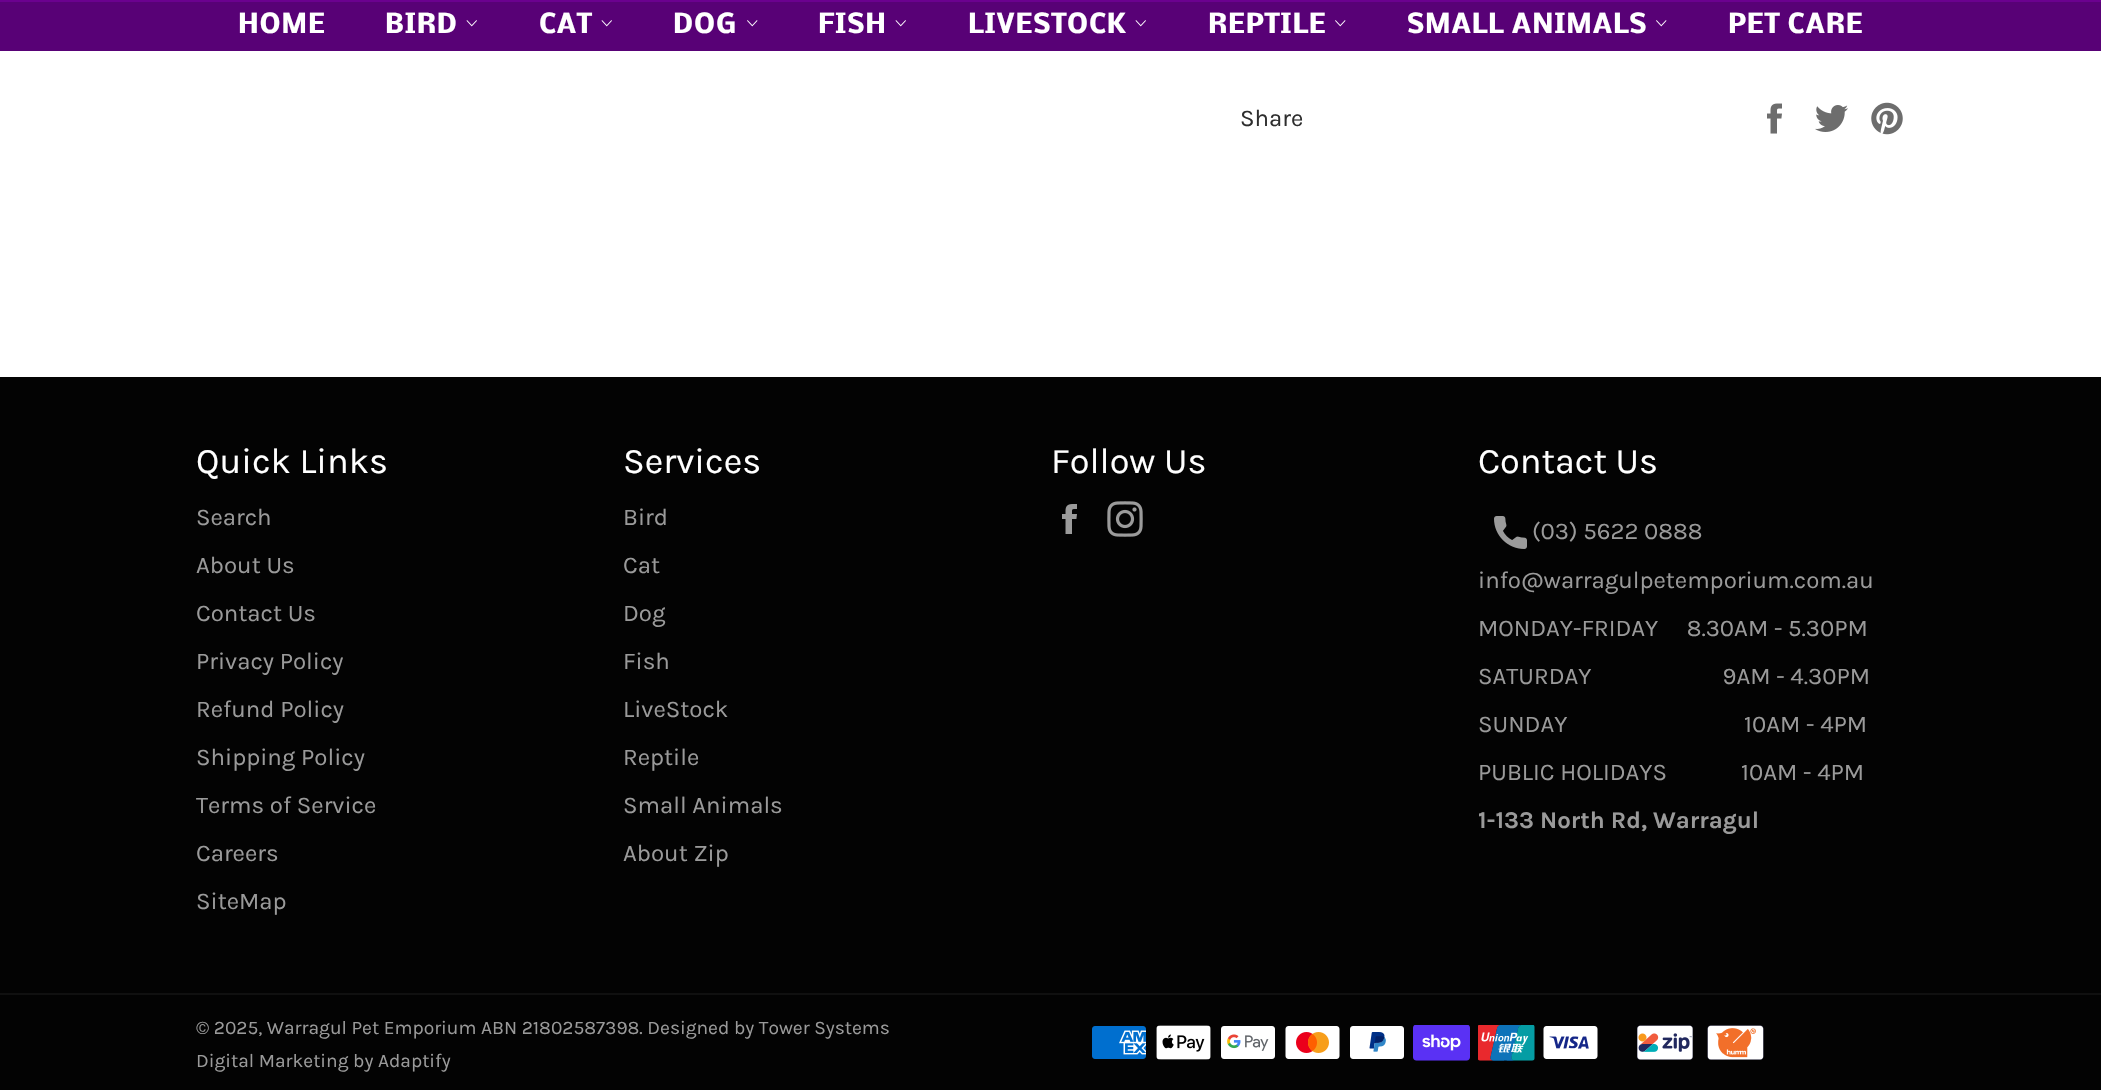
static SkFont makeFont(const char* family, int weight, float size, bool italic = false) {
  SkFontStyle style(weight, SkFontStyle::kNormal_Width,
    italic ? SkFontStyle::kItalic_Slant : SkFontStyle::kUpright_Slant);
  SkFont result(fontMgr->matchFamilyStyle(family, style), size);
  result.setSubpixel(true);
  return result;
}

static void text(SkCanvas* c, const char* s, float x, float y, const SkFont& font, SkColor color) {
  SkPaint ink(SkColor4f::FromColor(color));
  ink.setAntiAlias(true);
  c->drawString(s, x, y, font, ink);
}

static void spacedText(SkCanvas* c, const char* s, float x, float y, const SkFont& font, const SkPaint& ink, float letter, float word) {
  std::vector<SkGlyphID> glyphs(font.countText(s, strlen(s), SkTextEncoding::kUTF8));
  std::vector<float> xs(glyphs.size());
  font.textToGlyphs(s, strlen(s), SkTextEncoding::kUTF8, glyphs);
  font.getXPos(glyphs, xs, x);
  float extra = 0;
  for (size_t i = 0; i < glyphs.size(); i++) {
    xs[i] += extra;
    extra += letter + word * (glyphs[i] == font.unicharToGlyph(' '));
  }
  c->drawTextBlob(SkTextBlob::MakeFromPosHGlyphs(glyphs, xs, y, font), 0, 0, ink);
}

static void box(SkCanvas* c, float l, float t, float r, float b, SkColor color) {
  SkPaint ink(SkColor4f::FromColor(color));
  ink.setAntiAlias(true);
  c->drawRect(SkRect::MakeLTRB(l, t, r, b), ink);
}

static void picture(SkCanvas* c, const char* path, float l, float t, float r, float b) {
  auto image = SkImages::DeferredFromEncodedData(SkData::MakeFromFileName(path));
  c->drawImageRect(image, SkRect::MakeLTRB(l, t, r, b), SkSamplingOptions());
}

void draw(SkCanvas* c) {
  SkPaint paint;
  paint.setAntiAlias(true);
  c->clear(0xffffffff);
  box(c, 0, 2, 2101, 51, 0xff580176);
  box(c, 0, 0, 2101, 2, 0xff6b018f);
  SkFont face1 = makeFont("Nobile", 700, 25.5f);
  paint.setColor(0xffffffff);
  spacedText(c, "HOME", 238, 33, face1, paint, 0.9f, 0);
  spacedText(c, "BIRD", 385, 33, face1, paint, 0.9f, 0);
  picture(c, "img_01.png", 466, 20, 477, 27);
  spacedText(c, "CAT", 539, 33, face1, paint, 0.9f, 0);
  picture(c, "img_01.png", 601, 20, 612, 27);
  spacedText(c, "DOG", 673, 33, face1, paint, 0.9f, 0);
  picture(c, "img_02.png", 747, 20, 758, 27);
  spacedText(c, "FISH", 818, 33, face1, paint, 0.9f, 0);
  picture(c, "img_01.png", 895, 20, 906, 27);
  spacedText(c, "LIVESTOCK", 968, 33, face1, paint, 0.9f, 0);
  picture(c, "img_01.png", 1135, 20, 1146, 27);
  spacedText(c, "REPTILE", 1208, 33, face1, paint, 0.9f, 0);
  picture(c, "img_02.png", 1335, 20, 1346, 27);
  spacedText(c, "SMALL ANIMALS", 1407, 33, face1, paint, 0.9f, 0);
  picture(c, "img_02.png", 1656, 20, 1667, 27);
  spacedText(c, "PET CARE", 1728, 33, face1, paint, 0.9f, 0);
  SkFont face2 = makeFont("Karla", 400, 24);
  text(c, "Share", 1240, 126, face2, 0xff2e2e2e);
  picture(c, "img_03.png", 1767, 103, 1782, 134);
  picture(c, "img_04.png", 1815, 105, 1848, 132);
  picture(c, "img_05.png", 1871, 102, 1903, 135);
  box(c, 0, 377, 2101, 1090, 0xff030303);
  SkFont face3 = makeFont("Karla", 400, 36);
  text(c, "Quick Links", 196, 473, face3, 0xffffffff);
  text(c, "Search", 196, 525, face2, 0xff9a9a9a);
  text(c, "About Us", 196, 573, face2, 0xff9a9a9a);
  text(c, "Contact Us", 196, 621, face2, 0xff9a9a9a);
  text(c, "Privacy Policy", 196, 669, face2, 0xff9a9a9a);
  text(c, "Refund Policy", 196, 717, face2, 0xff9a9a9a);
  text(c, "Shipping Policy", 196, 765, face2, 0xff9a9a9a);
  text(c, "Terms of Service", 196, 813, face2, 0xff9a9a9a);
  text(c, "Careers", 196, 861, face2, 0xff9a9a9a);
  text(c, "SiteMap", 196, 909, face2, 0xff9a9a9a);
  text(c, "Services", 623, 473, face3, 0xffffffff);
  text(c, "Bird", 623, 525, face2, 0xff9a9a9a);
  text(c, "Cat", 623, 573, face2, 0xff9a9a9a);
  text(c, "Dog", 623, 621, face2, 0xff9a9a9a);
  text(c, "Fish", 623, 669, face2, 0xff9a9a9a);
  text(c, "LiveStock", 623, 717, face2, 0xff9a9a9a);
  text(c, "Reptile", 623, 765, face2, 0xff9a9a9a);
  text(c, "Small Animals", 623, 813, face2, 0xff9a9a9a);
  text(c, "About Zip", 623, 861, face2, 0xff9a9a9a);
  text(c, "Follow Us", 1051, 473, face3, 0xffffffff);
  picture(c, "img_06.png", 1062, 504, 1077, 534);
  picture(c, "img_07.png", 1107, 501, 1143, 537);
  text(c, "Contact Us", 1478, 473, face3, 0xffffffff);
  picture(c, "img_08.png", 1494, 516, 1527, 549);
  text(c, "(03) 5622 0888", 1532, 539, face2, 0xff9a9a9a);
  text(c, "info@warragulpetemporium.com.au", 1478, 588, face2, 0xff9a9a9a);
  text(c, "MONDAY-FRIDAY     8.30AM - 5.30PM", 1478, 636, face2, 0xff9a9a9a);
  text(c, "SATURDAY                       9AM - 4.30PM", 1478, 684, face2, 0xff9a9a9a);
  text(c, "SUNDAY                               10AM - 4PM", 1478, 732, face2, 0xff9a9a9a);
  text(c, "PUBLIC HOLIDAYS             10AM - 4PM", 1478, 780, face2, 0xff9a9a9a);
  SkFont face4 = makeFont("Karla", 700, 24);
  text(c, "1-133 North Rd, Warragul", 1478, 828, face4, 0xff9a9a9a);
  box(c, 0, 993, 2101, 995, 0xff101010);
  SkFont face5 = makeFont("Karla", 400, 19.2f);
  text(c, "© 2025, Warragul Pet Emporium ABN 21802587398. Designed by Tower Systems", 196, 1034, face5, 0xff9a9a9a);
  text(c, "Digital Marketing by Adaptify", 196, 1067, face5, 0xff9a9a9a);
  picture(c, "img_09.png", 1092, 1026, 1146, 1059);
  picture(c, "img_10.png", 1156, 1025, 1211, 1060);
  picture(c, "img_11.png", 1221, 1026, 1275, 1059);
  picture(c, "img_12.png", 1285, 1026, 1340, 1059);
  picture(c, "img_13.png", 1350, 1026, 1404, 1059);
  picture(c, "img_14.png", 1413, 1025, 1470, 1061);
  picture(c, "img_15.png", 1478, 1025, 1535, 1061);
  picture(c, "img_16.png", 1543, 1026, 1598, 1059);
  picture(c, "img_17.png", 1637, 1025, 1693, 1060);
  picture(c, "img_18.png", 1707, 1025, 1764, 1060);
}
